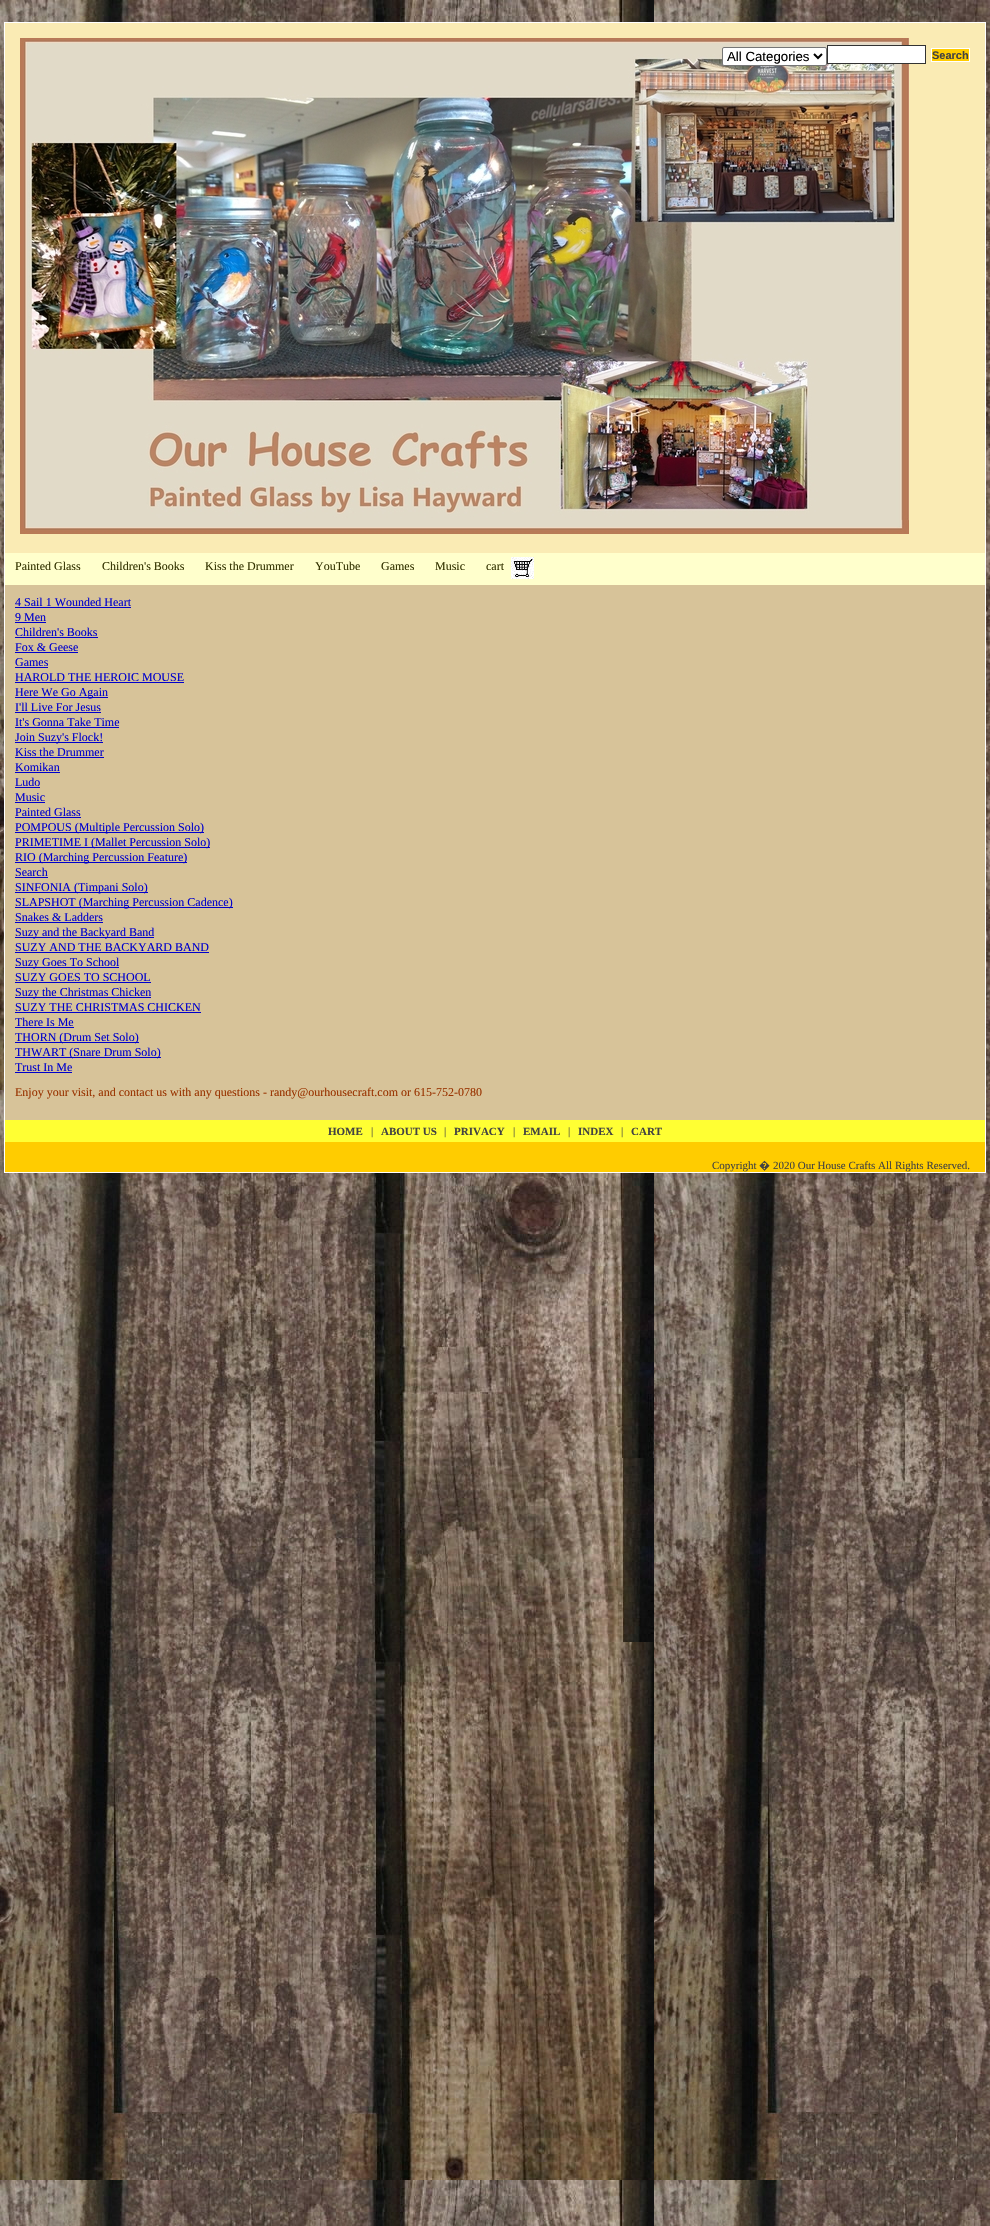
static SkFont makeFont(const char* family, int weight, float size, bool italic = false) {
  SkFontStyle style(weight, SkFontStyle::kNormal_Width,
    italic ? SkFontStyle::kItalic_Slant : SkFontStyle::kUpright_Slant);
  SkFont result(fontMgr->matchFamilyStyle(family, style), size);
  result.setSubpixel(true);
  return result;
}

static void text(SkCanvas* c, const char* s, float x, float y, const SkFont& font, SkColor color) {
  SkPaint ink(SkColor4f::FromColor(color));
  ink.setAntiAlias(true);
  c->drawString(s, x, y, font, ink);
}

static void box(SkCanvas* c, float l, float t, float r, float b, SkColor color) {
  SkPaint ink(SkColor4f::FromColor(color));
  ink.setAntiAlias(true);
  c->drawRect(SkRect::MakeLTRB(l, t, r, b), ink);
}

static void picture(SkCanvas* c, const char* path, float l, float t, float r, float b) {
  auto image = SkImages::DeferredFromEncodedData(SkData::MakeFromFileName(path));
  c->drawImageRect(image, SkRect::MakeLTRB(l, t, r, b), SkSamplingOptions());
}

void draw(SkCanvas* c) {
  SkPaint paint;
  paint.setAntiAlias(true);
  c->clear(0xffffffff);
  picture(c, "img_01.png", 0, 0, 990, 2226);
  box(c, 5, 585, 985, 1120, 0xffd7c399);
  paint.setStyle(SkPaint::kStroke_Style);
  paint.setStrokeWidth(1);
  paint.setColor(0xffffffff);
  c->drawRect(SkRect::MakeLTRB(4.5f, 22.5f, 985.5f, 1172.5f), paint);
  box(c, 5, 23, 985, 553, 0xfffaebb4);
  picture(c, "img_02.png", 20, 38, 909, 534);
  paint.setStyle(SkPaint::kFill_Style);
  c->drawRoundRect(SkRect::MakeLTRB(722.5f, 47.5f, 826.5f, 65.5f), 1.5f, 1.5f, paint);
  paint.setStyle(SkPaint::kStroke_Style);
  paint.setColor(0xff767676);
  c->drawRoundRect(SkRect::MakeLTRB(722.5f, 47.5f, 826.5f, 65.5f), 1.5f, 1.5f, paint);
  paint.setStrokeWidth(2);
  paint.setColor(0xff000000);
  c->drawPath(SkPathBuilder().moveTo(814, 54).lineTo(818, 58).lineTo(822, 54).detach(), paint);
  SkFont face1 = makeFont("Liberation Sans", 400, 13.25f);
  text(c, "All Categories", 727, 61, face1, 0xff000000);
  paint.setStyle(SkPaint::kFill_Style);
  paint.setColor(0xffffffff);
  c->drawRect(SkRect::MakeLTRB(827.5f, 45.5f, 925.5f, 63.5f), paint);
  paint.setStyle(SkPaint::kStroke_Style);
  paint.setStrokeWidth(1);
  paint.setColor(0xff333333);
  c->drawRect(SkRect::MakeLTRB(827.5f, 45.5f, 925.5f, 63.5f), paint);
  paint.setStyle(SkPaint::kFill_Style);
  paint.setColor(0xffffcc00);
  c->drawRect(SkRect::MakeLTRB(931.5f, 48.5f, 969.5f, 61.5f), paint);
  paint.setStyle(SkPaint::kStroke_Style);
  paint.setColor(0xffffffff);
  c->drawRect(SkRect::MakeLTRB(931.5f, 48.5f, 969.5f, 61.5f), paint);
  SkFont face2 = makeFont("Liberation Sans", 700, 11);
  text(c, "Search", 932, 59, face2, 0xff424242);
  box(c, 5, 553, 985, 585, 0xffffffcc);
  SkFont face3 = makeFont("Liberation Serif", 400, 12);
  text(c, "Painted Glass", 15, 570, face3, 0xff333300);
  text(c, "Children's Books", 102, 570, face3, 0xff333300);
  text(c, "Kiss the Drummer", 205, 570, face3, 0xff333300);
  text(c, "YouTube", 315, 570, face3, 0xff333300);
  text(c, "Games", 381, 570, face3, 0xff333300);
  text(c, "Music", 435, 570, face3, 0xff333300);
  text(c, "cart", 486, 570, face3, 0xff333300);
  picture(c, "img_03.png", 511, 557, 534, 579);
  text(c, "4 Sail 1 Wounded Heart", 15, 606, face3, 0xff0000cc);
  box(c, 15, 607, 131, 608, 0xff0000cc);
  text(c, "9 Men", 15, 621, face3, 0xff0000cc);
  box(c, 15, 622, 46, 623, 0xff0000cc);
  text(c, "Children's Books", 15, 636, face3, 0xff0000cc);
  box(c, 15, 637, 98, 638, 0xff0000cc);
  text(c, "Fox & Geese", 15, 651, face3, 0xff0000cc);
  box(c, 15, 652, 78, 653, 0xff0000cc);
  text(c, "Games", 15, 666, face3, 0xff0000cc);
  box(c, 15, 667, 48, 668, 0xff0000cc);
  text(c, "HAROLD THE HEROIC MOUSE", 15, 681, face3, 0xff0000cc);
  box(c, 15, 682, 184, 683, 0xff0000cc);
  box(c, 15, 697, 108, 698, 0xff0000cc);
  text(c, "Here We Go Again", 15, 696, face3, 0xff0000cc);
  text(c, "I'll Live For Jesus", 15, 711, face3, 0xff0000cc);
  box(c, 15, 712, 101, 713, 0xff0000cc);
  text(c, "It's Gonna Take Time", 15, 726, face3, 0xff0000cc);
  box(c, 15, 727, 119, 728, 0xff0000cc);
  box(c, 15, 742, 103, 743, 0xff0000cc);
  text(c, "Join Suzy's Flock!", 15, 741, face3, 0xff0000cc);
  text(c, "Kiss the Drummer", 15, 756, face3, 0xff0000cc);
  box(c, 15, 757, 104, 758, 0xff0000cc);
  text(c, "Komikan", 15, 771, face3, 0xff0000cc);
  box(c, 15, 772, 60, 773, 0xff0000cc);
  text(c, "Ludo", 15, 786, face3, 0xff0000cc);
  box(c, 15, 787, 40, 788, 0xff0000cc);
  text(c, "Music", 15, 801, face3, 0xff0000cc);
  box(c, 15, 802, 45, 803, 0xff0000cc);
  text(c, "Painted Glass", 15, 816, face3, 0xff0000cc);
  box(c, 15, 817, 81, 818, 0xff0000cc);
  box(c, 15, 832, 204, 833, 0xff0000cc);
  text(c, "POMPOUS (Multiple Percussion Solo)", 15, 831, face3, 0xff0000cc);
  box(c, 15, 847, 210, 848, 0xff0000cc);
  text(c, "PRIMETIME I (Mallet Percussion Solo)", 15, 846, face3, 0xff0000cc);
  box(c, 15, 862, 187, 863, 0xff0000cc);
  text(c, "RIO (Marching Percussion Feature)", 15, 861, face3, 0xff0000cc);
  text(c, "Search", 15, 876, face3, 0xff0000cc);
  box(c, 15, 877, 48, 878, 0xff0000cc);
  box(c, 15, 892, 148, 893, 0xff0000cc);
  text(c, "SINFONIA (Timpani Solo)", 15, 891, face3, 0xff0000cc);
  box(c, 15, 907, 233, 908, 0xff0000cc);
  text(c, "SLAPSHOT (Marching Percussion Cadence)", 15, 906, face3, 0xff0000cc);
  text(c, "Snakes & Ladders", 15, 921, face3, 0xff0000cc);
  box(c, 15, 922, 103, 923, 0xff0000cc);
  box(c, 15, 937, 154, 938, 0xff0000cc);
  text(c, "Suzy and the Backyard Band", 15, 936, face3, 0xff0000cc);
  text(c, "SUZY AND THE BACKYARD BAND", 15, 951, face3, 0xff0000cc);
  box(c, 15, 952, 209, 953, 0xff0000cc);
  box(c, 15, 967, 119, 968, 0xff0000cc);
  text(c, "Suzy Goes To School", 15, 966, face3, 0xff0000cc);
  text(c, "SUZY GOES TO SCHOOL", 15, 981, face3, 0xff0000cc);
  box(c, 15, 982, 151, 983, 0xff0000cc);
  box(c, 15, 997, 151, 998, 0xff0000cc);
  text(c, "Suzy the Christmas Chicken", 15, 996, face3, 0xff0000cc);
  text(c, "SUZY THE CHRISTMAS CHICKEN", 15, 1011, face3, 0xff0000cc);
  box(c, 15, 1012, 201, 1013, 0xff0000cc);
  text(c, "There Is Me", 15, 1026, face3, 0xff0000cc);
  box(c, 15, 1027, 74, 1028, 0xff0000cc);
  box(c, 15, 1042, 139, 1043, 0xff0000cc);
  text(c, "THORN (Drum Set Solo)", 15, 1041, face3, 0xff0000cc);
  box(c, 15, 1057, 161, 1058, 0xff0000cc);
  text(c, "THWART (Snare Drum Solo)", 15, 1056, face3, 0xff0000cc);
  text(c, "Trust In Me", 15, 1071, face3, 0xff0000cc);
  box(c, 15, 1072, 72, 1073, 0xff0000cc);
  text(c, "Enjoy your visit, and contact us with any questions - randy@ourhousecraft.com or 615-752-0780", 15, 1096, face3, 0xff993300);
  box(c, 5, 1142, 985, 1172, 0xffffcc00);
  box(c, 5, 1120, 985, 1142, 0xffffff33);
  SkFont face4 = makeFont("Liberation Serif", 700, 11);
  text(c, "HOME", 328, 1135, face4, 0xff424242);
  SkFont face5 = makeFont("Liberation Serif", 400, 11);
  text(c, "|", 371, 1135, face5, 0xff424242);
  text(c, "ABOUT US", 381, 1135, face4, 0xff424242);
  text(c, "|", 444, 1135, face5, 0xff424242);
  text(c, "PRIVACY", 454, 1135, face4, 0xff424242);
  text(c, "|", 513, 1135, face5, 0xff424242);
  text(c, "EMAIL", 523, 1135, face4, 0xff424242);
  text(c, "|", 568, 1135, face5, 0xff424242);
  text(c, "INDEX", 578, 1135, face4, 0xff424242);
  text(c, "|", 621, 1135, face5, 0xff424242);
  text(c, "CART", 631, 1135, face4, 0xff424242);
  text(c, "Copyright", 712, 1169, face5, 0xff424242);
  SkFont face6 = makeFont("Noto Sans", 400, 11);
  text(c, "�", 759, 1169, face6, 0xff424242);
  text(c, "2020 Our House Crafts All Rights Reserved.", 773, 1169, face5, 0xff424242);
}
